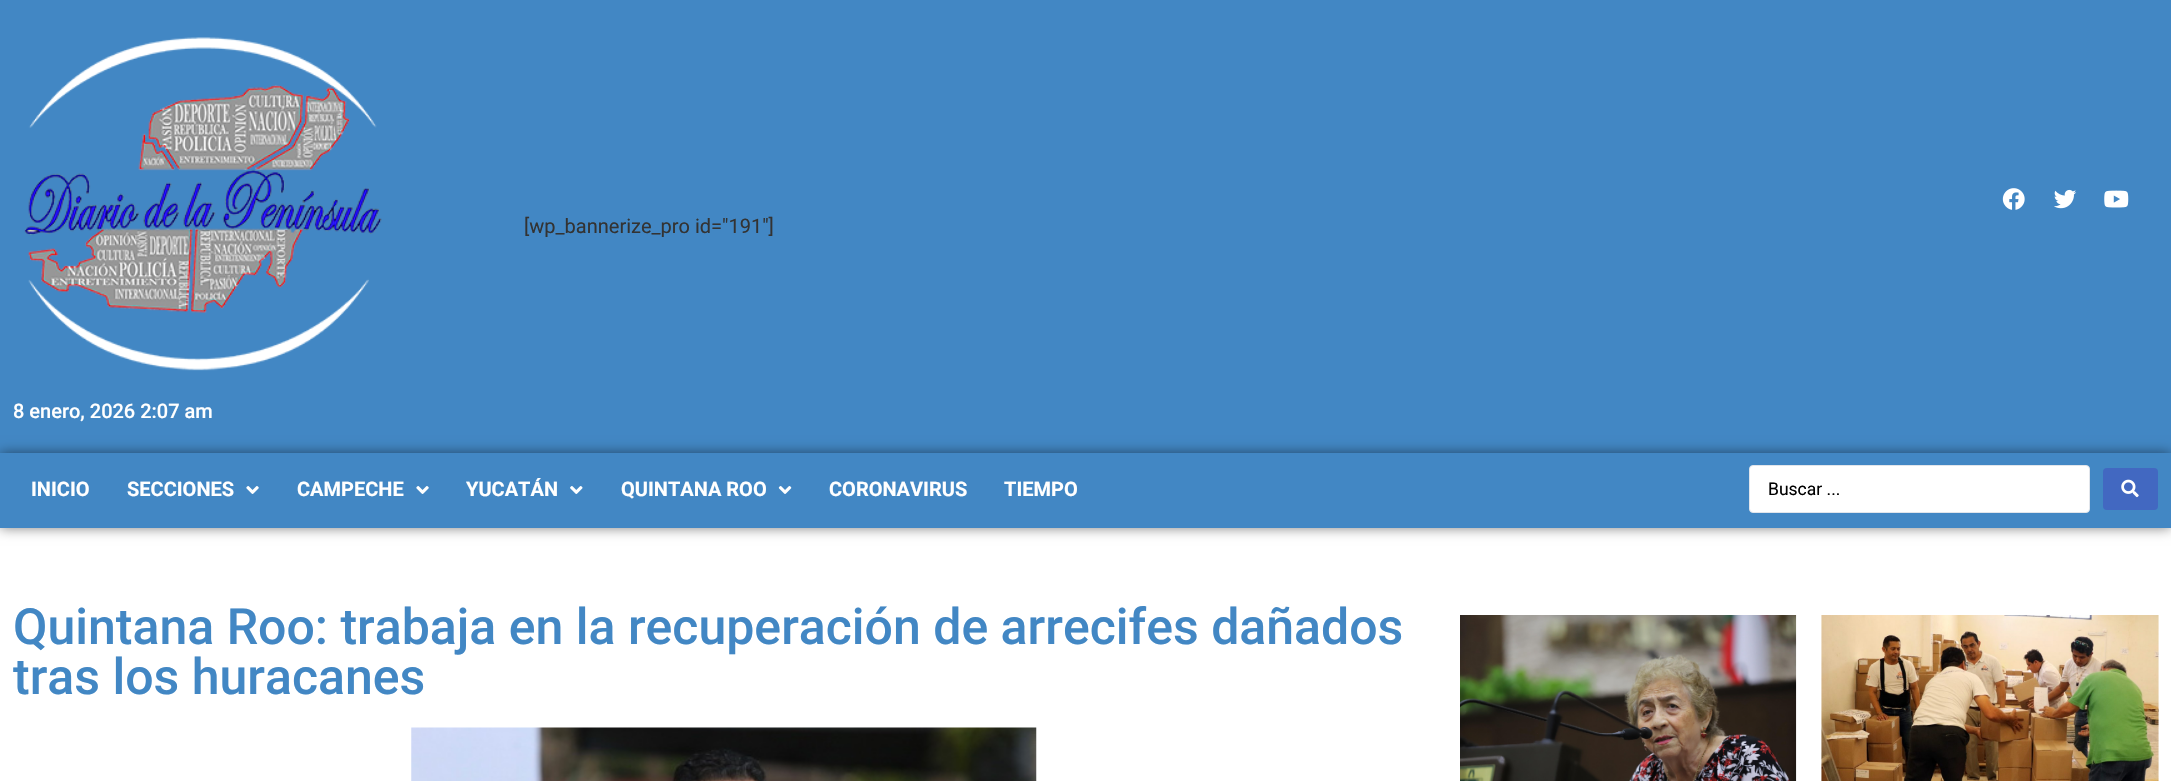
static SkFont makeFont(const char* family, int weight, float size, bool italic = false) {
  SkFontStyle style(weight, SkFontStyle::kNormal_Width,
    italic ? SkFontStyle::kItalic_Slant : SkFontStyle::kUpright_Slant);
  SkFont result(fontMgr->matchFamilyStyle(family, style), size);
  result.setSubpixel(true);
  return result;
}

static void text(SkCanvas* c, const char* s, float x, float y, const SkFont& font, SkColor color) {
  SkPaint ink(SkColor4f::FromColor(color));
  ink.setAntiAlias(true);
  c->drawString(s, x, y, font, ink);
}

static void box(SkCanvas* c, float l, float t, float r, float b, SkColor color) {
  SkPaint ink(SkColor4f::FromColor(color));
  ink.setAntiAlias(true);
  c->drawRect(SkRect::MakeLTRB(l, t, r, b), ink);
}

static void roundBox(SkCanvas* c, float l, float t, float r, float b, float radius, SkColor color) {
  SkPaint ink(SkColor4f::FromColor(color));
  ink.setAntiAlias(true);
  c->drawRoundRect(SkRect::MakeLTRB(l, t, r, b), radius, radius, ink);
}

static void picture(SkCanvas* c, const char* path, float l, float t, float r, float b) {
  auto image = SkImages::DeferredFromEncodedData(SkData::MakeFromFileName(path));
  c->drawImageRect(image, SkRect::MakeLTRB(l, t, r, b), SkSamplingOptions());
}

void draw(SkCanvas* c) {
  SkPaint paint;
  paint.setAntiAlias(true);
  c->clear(0xffffffff);
  box(c, 0, 0, 2171, 453, 0xff4287c4);
  picture(c, "img_01.png", 2002, 188, 2025, 210);
  picture(c, "img_02.png", 2054, 189, 2077, 209);
  picture(c, "img_03.png", 2104, 190, 2129, 208);
  SkFont face1 = makeFont("Roboto", 400, 20);
  text(c, "[wp_bannerize_pro id=\"191\"]", 524, 233, face1, 0xff333333);
  picture(c, "img_04.png", 24, 37, 382, 371);
  SkFont face2 = makeFont("Roboto", 500, 20);
  text(c, "8 enero, 2026 2:07 am", 13, 418, face2, 0xffffffff);
  paint.setColor(0x80000000);
  paint.setMaskFilter(SkMaskFilter::MakeBlur(kNormal_SkBlurStyle, 6));
  c->drawRect(SkRect::MakeLTRB(0, 453, 2171, 528), paint);
  paint.setMaskFilter(nullptr);
  box(c, 0, 453, 2171, 528, 0xff4287c4);
  SkFont face3 = makeFont("Roboto", 700, 20);
  text(c, "INICIO", 31, 496, face3, 0xffffffff);
  text(c, "SECCIONES", 127, 496, face3, 0xffffffff);
  picture(c, "img_05.png", 246, 486, 259, 494);
  text(c, "CAMPECHE", 297, 496, face3, 0xffffffff);
  picture(c, "img_05.png", 416, 486, 429, 494);
  text(c, "YUCATÁN", 466, 496, face3, 0xffffffff);
  picture(c, "img_06.png", 570, 486, 583, 494);
  text(c, "QUINTANA ROO", 621, 496, face3, 0xffffffff);
  picture(c, "img_07.png", 778, 486, 792, 494);
  text(c, "CORONAVIRUS", 829, 496, face3, 0xffffffff);
  text(c, "TIEMPO", 1004, 496, face3, 0xffffffff);
  paint.setColor(0xffffffff);
  c->drawRoundRect(SkRect::MakeLTRB(1749.5f, 465.5f, 2089.5f, 512.5f), 3.5f, 3.5f, paint);
  paint.setStyle(SkPaint::kStroke_Style);
  paint.setStrokeWidth(1);
  paint.setColor(0xffe1e5eb);
  c->drawRoundRect(SkRect::MakeLTRB(1749.5f, 465.5f, 2089.5f, 512.5f), 3.5f, 3.5f, paint);
  SkFont face4 = makeFont("Roboto", 400, 17.5f);
  text(c, "Buscar ...", 1768, 495, face4, 0xff000000);
  roundBox(c, 2103, 468, 2158, 510, 4, 0xff4268c1);
  picture(c, "img_08.png", 2121, 479, 2139, 498);
  SkFont face5 = makeFont("Roboto", 500, 50);
  text(c, "Quintana Roo: trabaja en la recuperación de arrecifes dañados", 13, 644, face5, 0xff4287c4);
  text(c, "tras los huracanes", 13, 694, face5, 0xff4287c4);
  picture(c, "img_09.png", 411, 727, 1037, 781);
  picture(c, "img_10.png", 1460, 615, 1797, 781);
  picture(c, "img_11.png", 1821, 615, 2159, 781);
}
